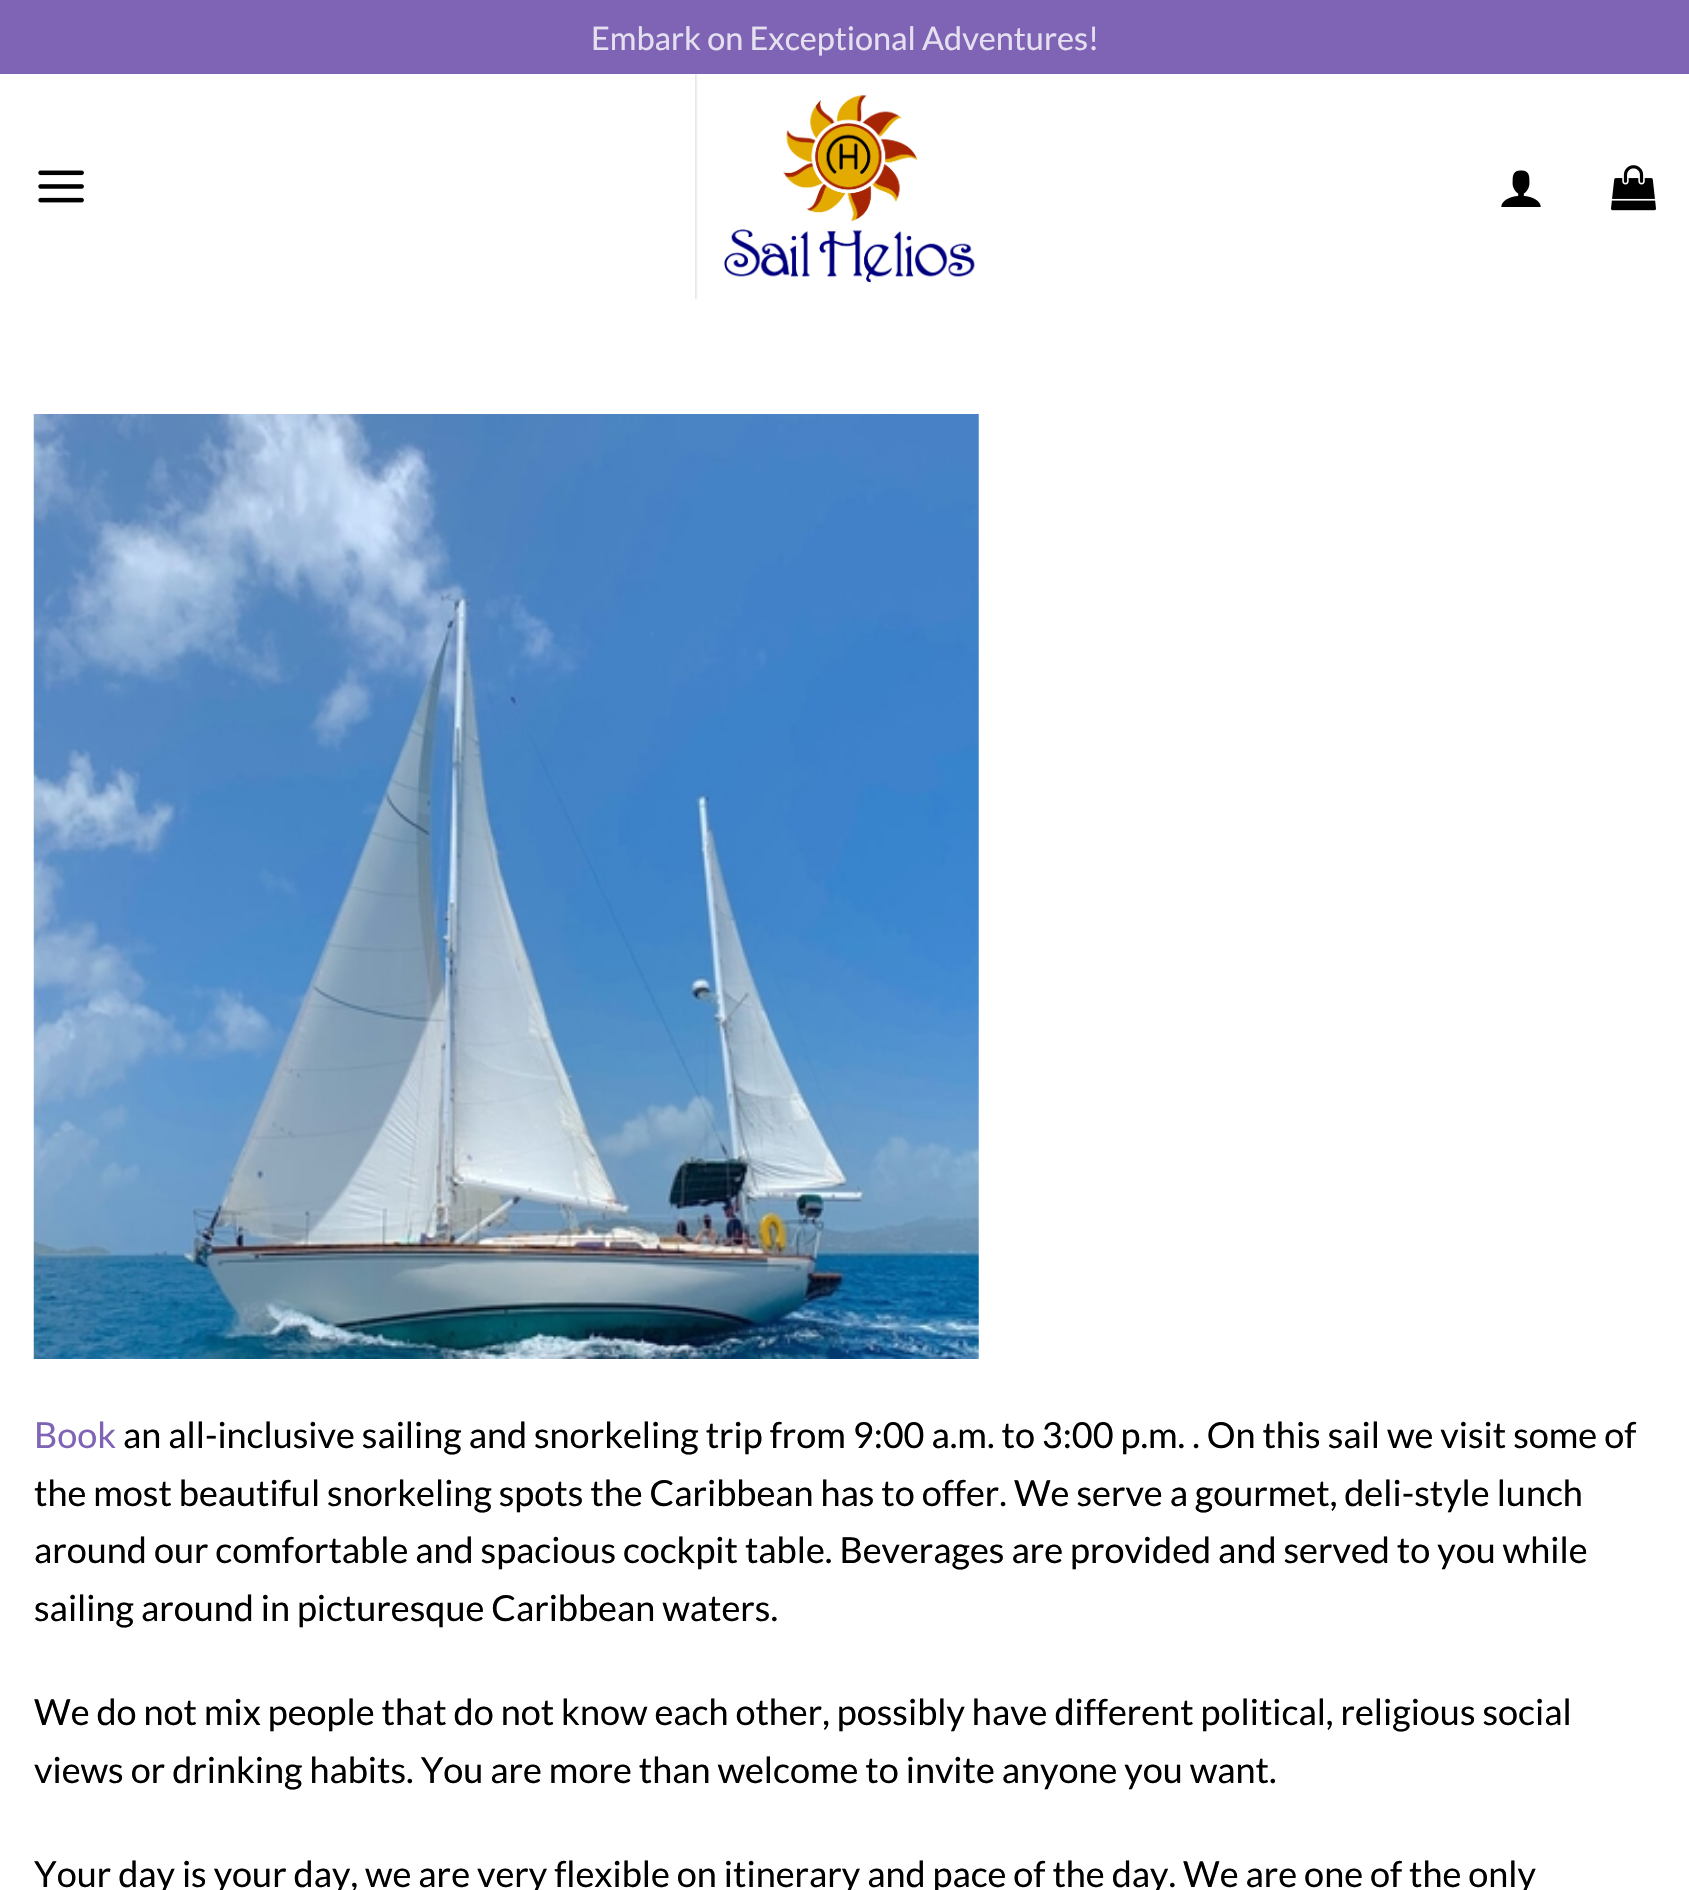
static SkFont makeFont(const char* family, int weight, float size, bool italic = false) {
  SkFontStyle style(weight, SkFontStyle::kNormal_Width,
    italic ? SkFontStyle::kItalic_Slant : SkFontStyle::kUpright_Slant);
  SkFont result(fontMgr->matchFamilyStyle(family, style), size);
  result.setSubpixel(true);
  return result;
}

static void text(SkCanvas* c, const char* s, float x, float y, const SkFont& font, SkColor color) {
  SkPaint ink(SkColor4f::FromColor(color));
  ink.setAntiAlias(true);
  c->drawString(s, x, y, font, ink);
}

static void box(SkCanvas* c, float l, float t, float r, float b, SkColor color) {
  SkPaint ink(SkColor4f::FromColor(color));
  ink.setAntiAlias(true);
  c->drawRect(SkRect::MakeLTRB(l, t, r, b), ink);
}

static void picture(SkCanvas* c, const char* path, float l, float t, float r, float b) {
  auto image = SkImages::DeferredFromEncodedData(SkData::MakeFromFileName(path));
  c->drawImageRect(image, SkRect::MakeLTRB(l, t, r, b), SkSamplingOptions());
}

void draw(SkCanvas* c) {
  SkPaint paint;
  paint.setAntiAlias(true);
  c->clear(0xffffffff);
  box(c, 0, 0, 1689, 74, 0xff7f64b5);
  SkFont face1 = makeFont("Lato", 400, 32.4f);
  text(c, "Embark on Exceptional Adventures!", 591, 50, face1, 0xffe5e0f0);
  picture(c, "img_01.png", 38, 170, 84, 203);
  picture(c, "img_02.png", 695, 74, 975, 300);
  picture(c, "img_03.png", 1501, 170, 1541, 207);
  picture(c, "img_04.png", 1611, 165, 1656, 211);
  picture(c, "img_05.png", 33, 414, 979, 1359);
  SkFont face2 = makeFont("Lato", 400, 36);
  text(c, "Book", 34, 1448, face2, 0xff7f64b5);
  text(c, "an all-inclusive sailing and snorkeling trip from 9:00 a.m. to 3:00 p.m. . On this sail we visit some of", 123, 1448, face2, 0xff000000);
  text(c, "the most beautiful snorkeling spots the Caribbean has to offer. We serve a gourmet, deli-style lunch", 34, 1506, face2, 0xff000000);
  text(c, "around our comfortable and spacious cockpit table. Beverages are provided and served to you while", 34, 1563, face2, 0xff000000);
  text(c, "sailing around in picturesque Caribbean waters.", 34, 1621, face2, 0xff000000);
  text(c, "We do not mix people that do not know each other, possibly have different political, religious social", 34, 1725, face2, 0xff000000);
  text(c, "views or drinking habits. You are more than welcome to invite anyone you want.", 34, 1783, face2, 0xff000000);
  text(c, "Your day is your day, we are very flexible on itinerary and pace of the day. We are one of the only", 34, 1887, face2, 0xff000000);
}
